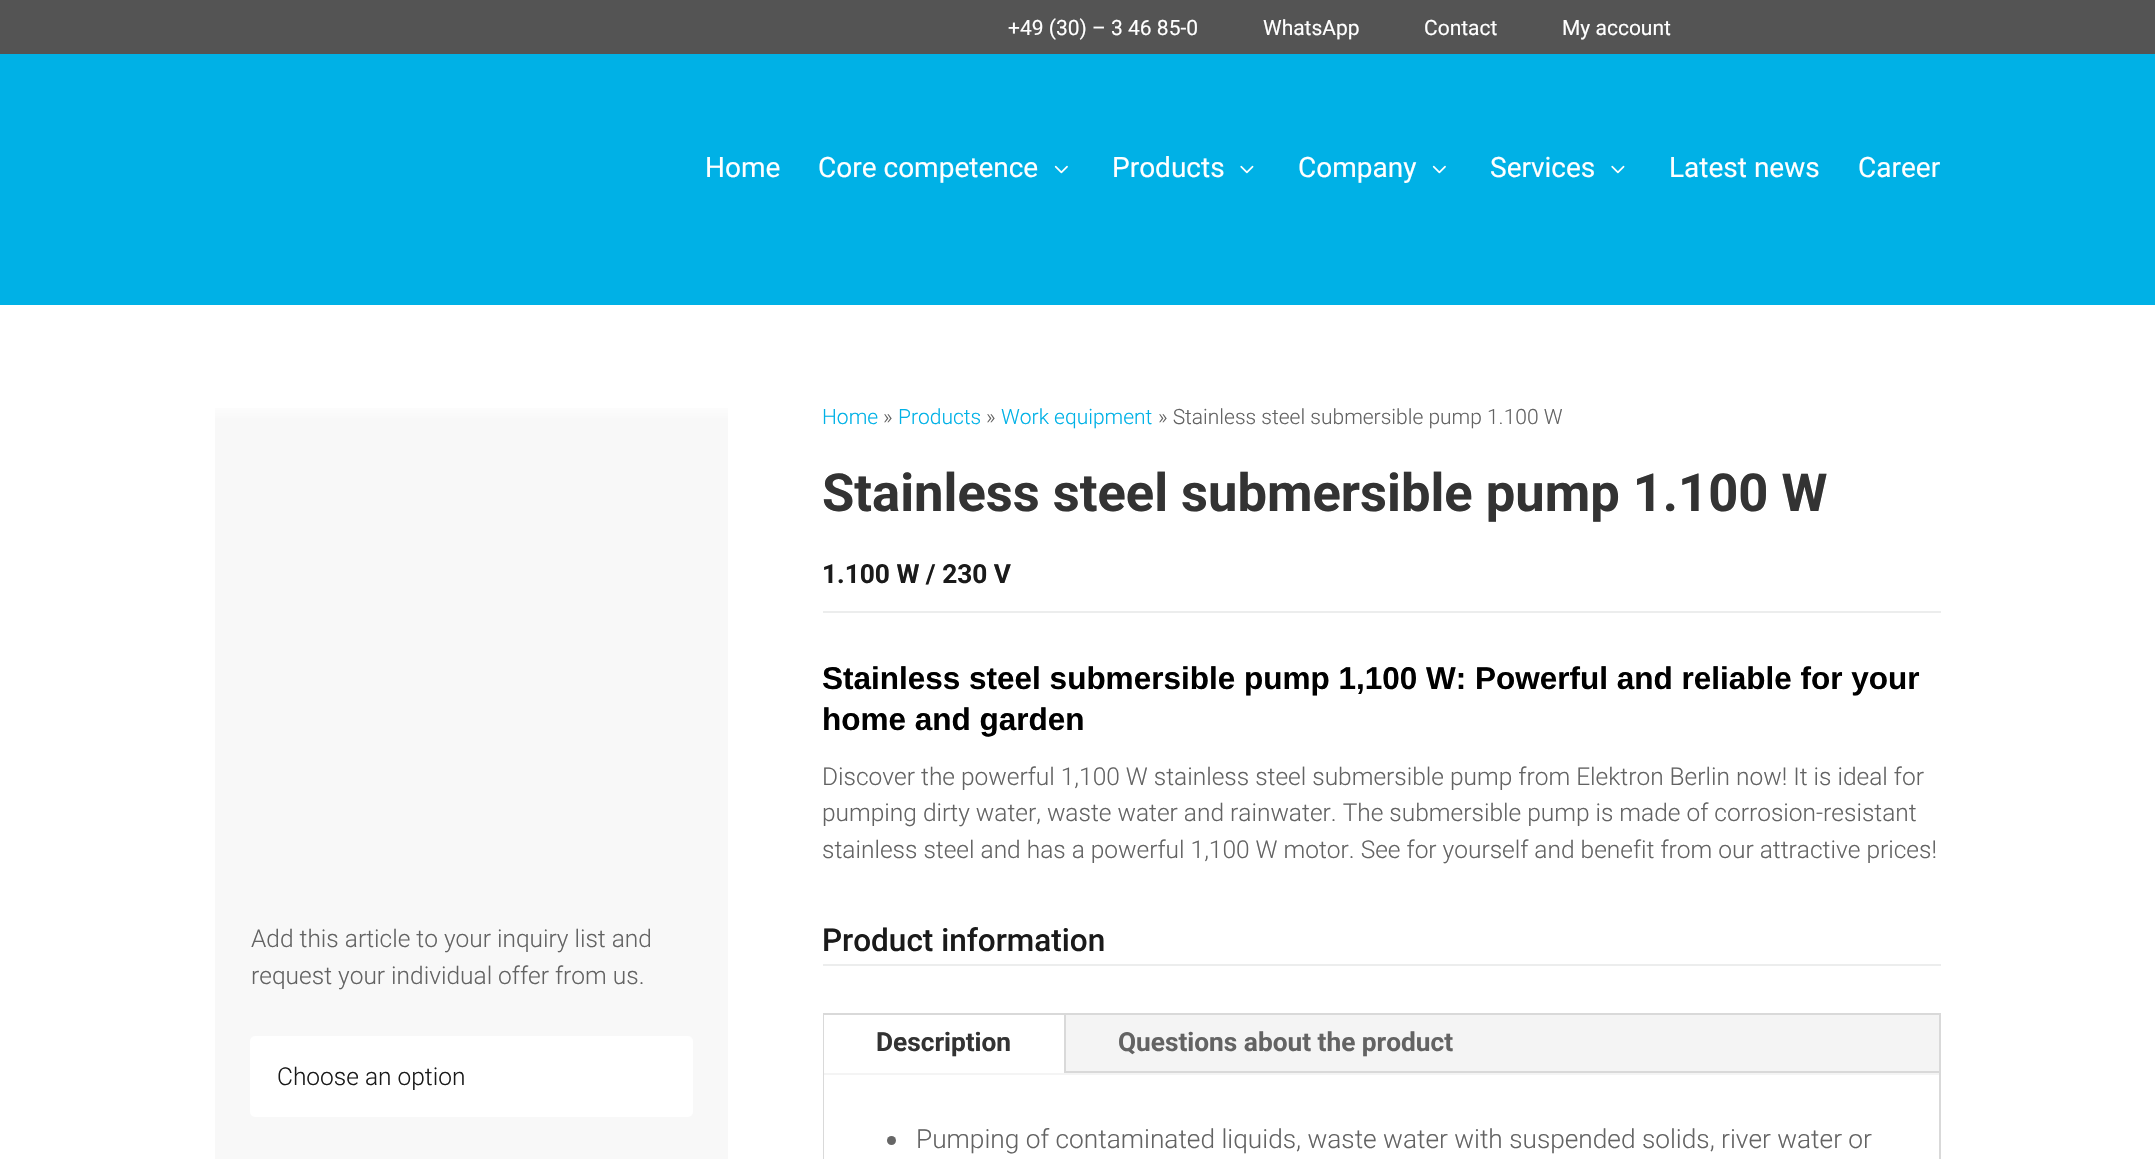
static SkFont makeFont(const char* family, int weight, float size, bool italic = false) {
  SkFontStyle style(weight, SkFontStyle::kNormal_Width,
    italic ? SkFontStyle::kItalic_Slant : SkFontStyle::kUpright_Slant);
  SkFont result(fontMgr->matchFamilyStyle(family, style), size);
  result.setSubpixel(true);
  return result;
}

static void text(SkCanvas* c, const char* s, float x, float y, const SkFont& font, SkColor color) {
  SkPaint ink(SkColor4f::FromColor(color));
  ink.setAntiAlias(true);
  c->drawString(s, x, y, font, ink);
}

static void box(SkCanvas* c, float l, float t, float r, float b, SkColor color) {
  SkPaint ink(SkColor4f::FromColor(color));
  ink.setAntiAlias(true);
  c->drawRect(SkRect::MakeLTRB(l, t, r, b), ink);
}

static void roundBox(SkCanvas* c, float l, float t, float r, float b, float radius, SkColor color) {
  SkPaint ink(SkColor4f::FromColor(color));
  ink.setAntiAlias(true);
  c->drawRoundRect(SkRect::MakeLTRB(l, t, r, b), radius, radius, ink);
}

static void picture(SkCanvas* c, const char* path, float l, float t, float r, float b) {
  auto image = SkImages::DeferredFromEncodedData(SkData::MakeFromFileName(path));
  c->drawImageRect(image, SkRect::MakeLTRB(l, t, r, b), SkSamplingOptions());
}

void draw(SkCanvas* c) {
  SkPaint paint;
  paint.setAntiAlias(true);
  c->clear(0xffffffff);
  box(c, 0, 0, 2155, 54, 0xff545454);
  SkFont face1 = makeFont("Roboto", 400, 21);
  text(c, "+49 (30) – 3 46 85-0", 1008, 35, face1, 0xffffffff);
  text(c, "WhatsApp", 1263, 35, face1, 0xffffffff);
  text(c, "Contact", 1424, 35, face1, 0xffffffff);
  text(c, "My account", 1562, 35, face1, 0xffffffff);
  box(c, 0, 54, 2155, 305, 0xff00b1e6);
  SkFont face2 = makeFont("Roboto", 400, 28);
  text(c, "Home", 705, 177, face2, 0xffffffff);
  text(c, "Core competence", 818, 177, face2, 0xffffffff);
  picture(c, "img_01.png", 1054, 165, 1068, 174);
  text(c, "Products", 1112, 177, face2, 0xffffffff);
  picture(c, "img_02.png", 1240, 165, 1254, 174);
  text(c, "Company", 1298, 177, face2, 0xffffffff);
  picture(c, "img_01.png", 1432, 165, 1446, 174);
  text(c, "Services", 1490, 177, face2, 0xffffffff);
  picture(c, "img_02.png", 1611, 165, 1625, 174);
  text(c, "Latest news", 1669, 177, face2, 0xffffffff);
  text(c, "Career", 1858, 177, face2, 0xffffffff);
  {
    const SkColor colors[] = {0xffffffff, 0xfff8f8f8};
    const float stops[] = {0, 0.01f};
    const SkPoint ends[] = {{472, 401}, {472, 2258}};
    paint.setShader(SkGradientShader::MakeLinear(ends, colors, stops, 2, SkTileMode::kClamp));
    paint.setAlpha(255);
  }
  c->drawRect(SkRect::MakeLTRB(215, 408, 728, 1159), paint);
  SkFont face3 = makeFont("Roboto", 300, 24.5f);
  text(c, "Add this article to your inquiry list and", 251, 947, face3, 0xff636363);
  text(c, "request your individual offer from us.", 251, 984, face3, 0xff636363);
  roundBox(c, 250, 1036, 693, 1117, 5, 0xffffffff);
  text(c, "Choose an option", 277, 1085, face3, 0xff1a1a1a);
  SkFont face4 = makeFont("Roboto", 300, 21);
  text(c, "Home", 822, 424, face4, 0xff00b1e6);
  text(c, "»", 883, 424, face4, 0xff636363);
  text(c, "Products", 898, 424, face4, 0xff00b1e6);
  text(c, "»", 986, 424, face4, 0xff636363);
  text(c, "Work equipment", 1001, 424, face4, 0xff00b1e6);
  text(c, "» Stainless steel submersible pump 1.100 W", 1158, 424, face4, 0xff636363);
  SkFont face5 = makeFont("Roboto", 700, 52.5f);
  text(c, "Stainless steel submersible pump 1.100 W", 822, 511, face5, 0xff333333);
  box(c, 823, 611, 1941, 613, 0xffeceded);
  SkFont face6 = makeFont("Roboto", 700, 26.25f);
  text(c, "1.100 W / 230 V", 822, 583, face6, 0xff1a1a1a);
  SkFont face7 = makeFont("Liberation Sans", 700, 31.5f);
  text(c, "Stainless steel submersible pump 1,100 W: Powerful and reliable for your", 822, 689, face7, 0xff000000);
  text(c, "home and garden", 822, 730, face7, 0xff000000);
  text(c, "Discover the powerful 1,100 W stainless steel submersible pump from Elektron Berlin now! It is ideal for", 822, 785, face3, 0xff636363);
  text(c, "pumping dirty water, waste water and rainwater. The submersible pump is made of corrosion-resistant", 822, 821, face3, 0xff636363);
  text(c, "stainless steel and has a powerful 1,100 W motor. See for yourself and benefit from our attractive prices!", 822, 858, face3, 0xff636363);
  box(c, 823, 964, 1941, 966, 0xffeceded);
  SkFont face8 = makeFont("Roboto", 500, 31.5f);
  text(c, "Product information", 822, 951, face8, 0xff1a1a1a);
  paint.setStyle(SkPaint::kStroke_Style);
  paint.setStrokeWidth(2);
  paint.setShader(nullptr);
  paint.setColor(0xffd9d9d9);
  c->drawRect(SkRect::MakeLTRB(824, 1014, 1940, 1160), paint);
  box(c, 824, 1015, 1939, 1075, 0xfff4f4f4);
  box(c, 824, 1015, 1064, 1073, 0xffffffff);
  box(c, 1064, 1015, 1066, 1073, 0xffd9d9d9);
  text(c, "Description", 876, 1051, face6, 0xff333333);
  text(c, "Questions about the product", 1118, 1051, face6, 0xff636363);
  box(c, 1066, 1071, 1939, 1073, 0xffd9d9d9);
  box(c, 824, 1075, 825, 1159, 0xffffffff);
  paint.setStyle(SkPaint::kFill_Style);
  paint.setColor(0xff666666);
  c->drawCircle(891.5f, 1140.5f, 4.5f, paint);
  SkFont face9 = makeFont("Roboto", 300, 26.25f);
  text(c, "Pumping of contaminated liquids, waste water with suspended solids, river water or", 916, 1148, face9, 0xff636363);
}
